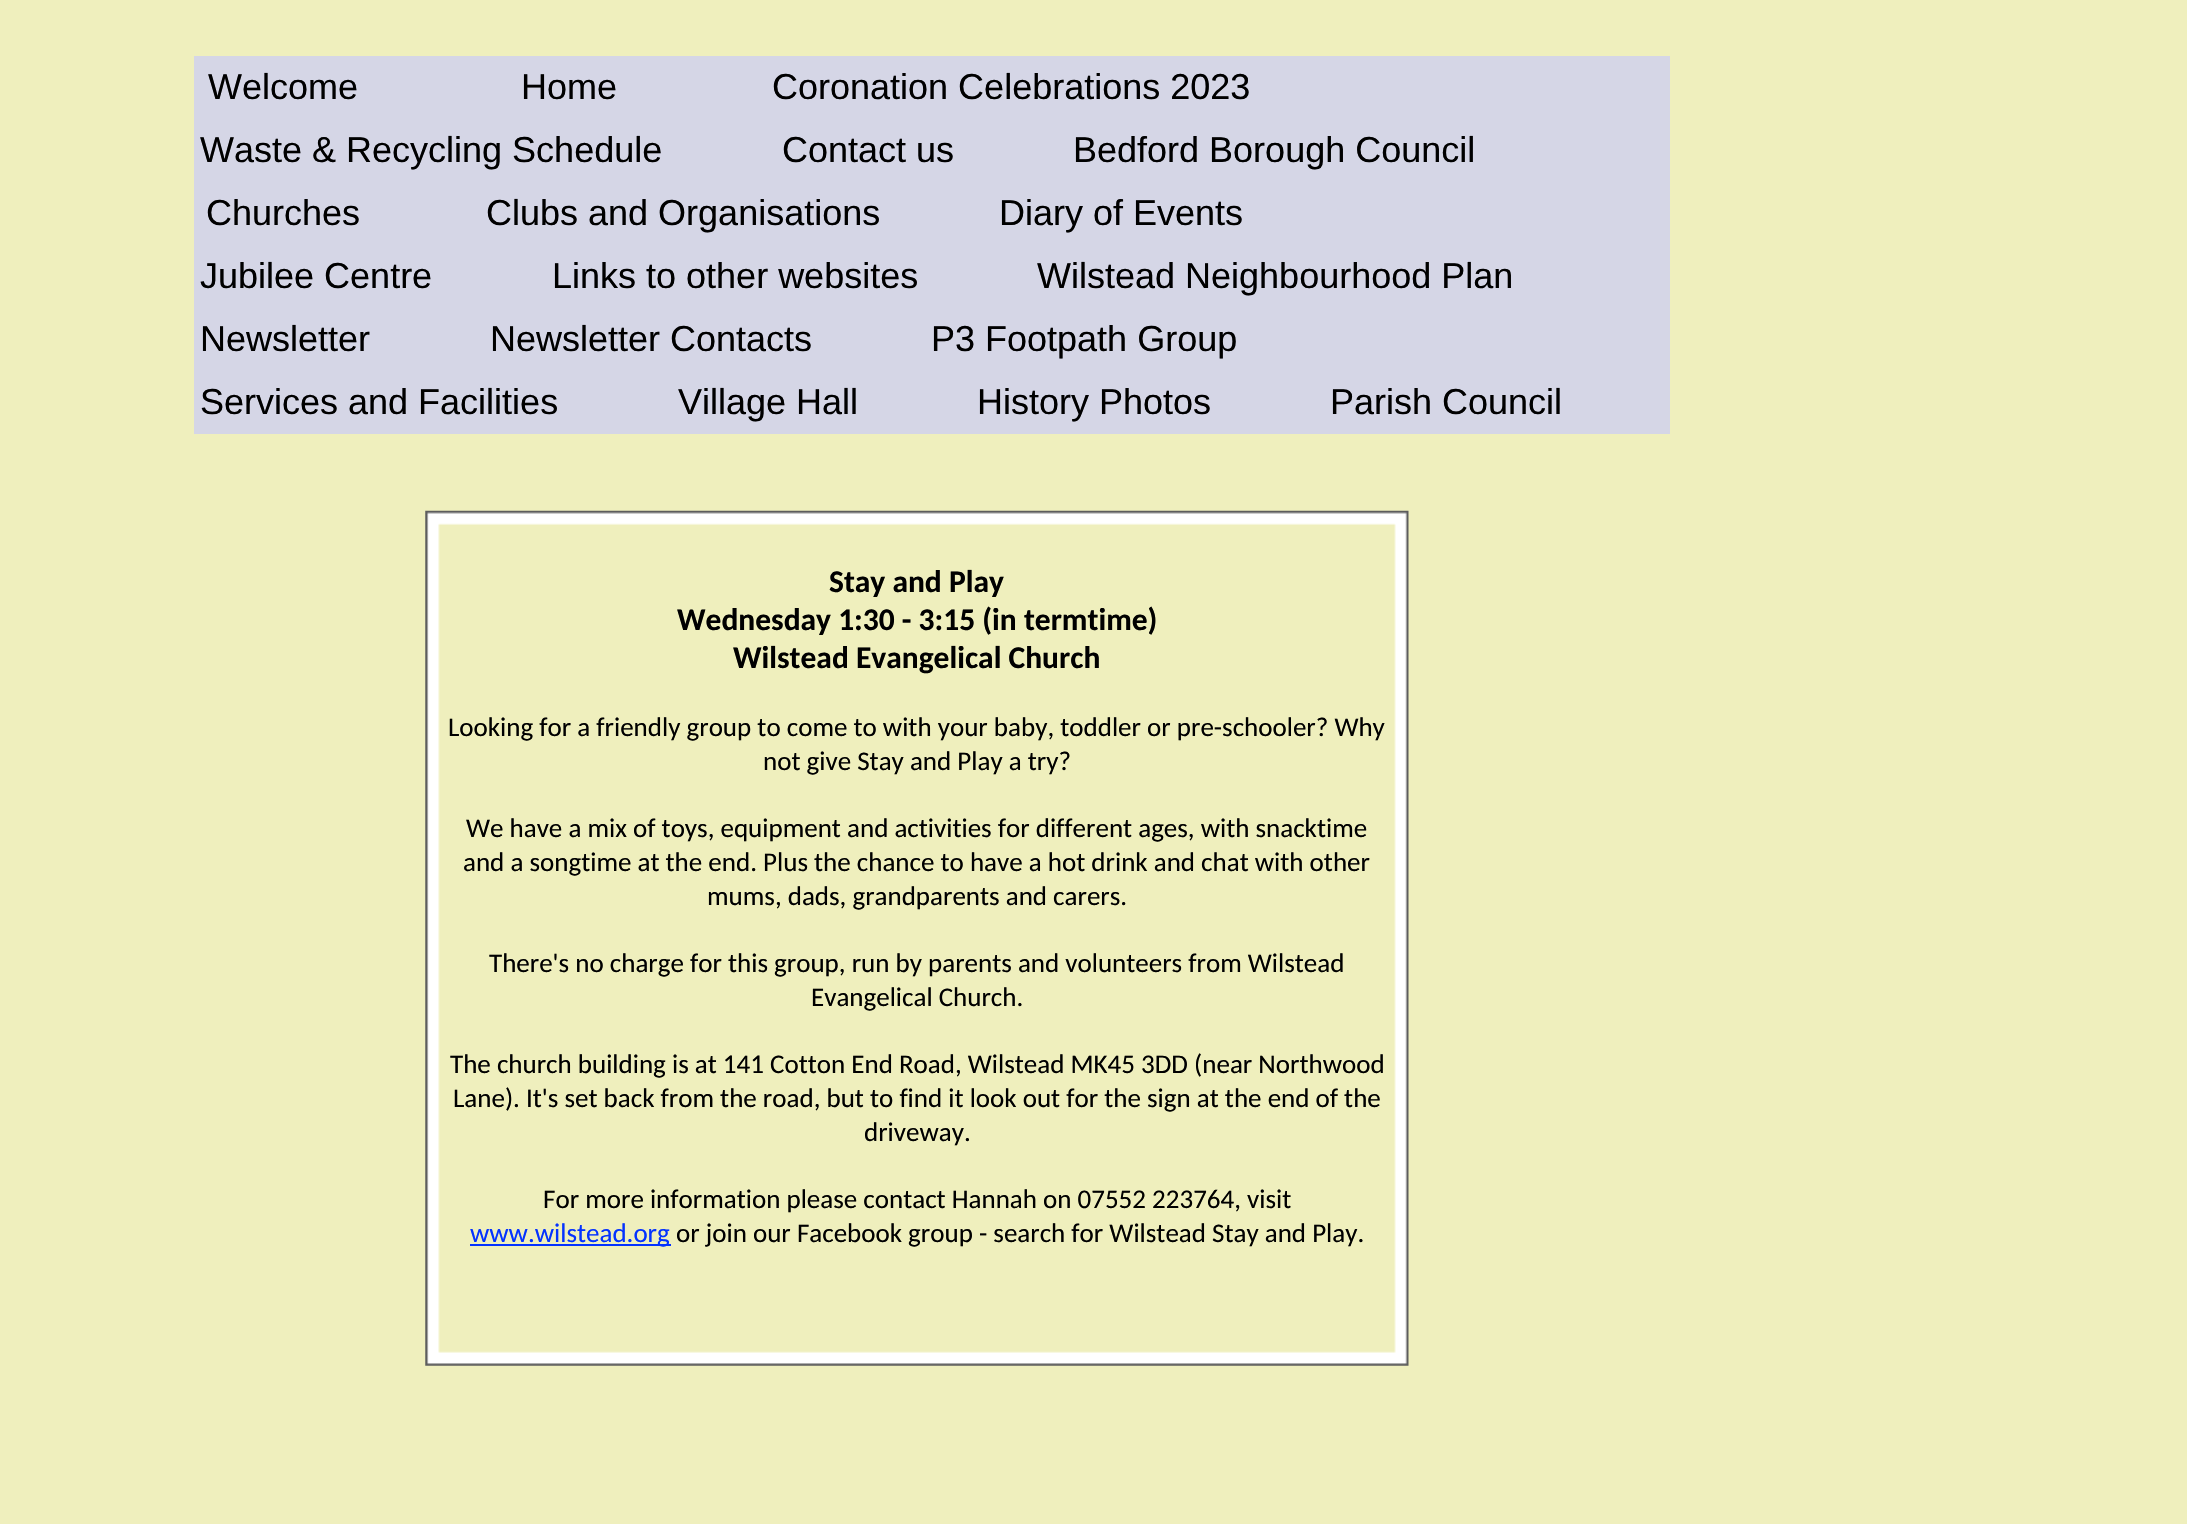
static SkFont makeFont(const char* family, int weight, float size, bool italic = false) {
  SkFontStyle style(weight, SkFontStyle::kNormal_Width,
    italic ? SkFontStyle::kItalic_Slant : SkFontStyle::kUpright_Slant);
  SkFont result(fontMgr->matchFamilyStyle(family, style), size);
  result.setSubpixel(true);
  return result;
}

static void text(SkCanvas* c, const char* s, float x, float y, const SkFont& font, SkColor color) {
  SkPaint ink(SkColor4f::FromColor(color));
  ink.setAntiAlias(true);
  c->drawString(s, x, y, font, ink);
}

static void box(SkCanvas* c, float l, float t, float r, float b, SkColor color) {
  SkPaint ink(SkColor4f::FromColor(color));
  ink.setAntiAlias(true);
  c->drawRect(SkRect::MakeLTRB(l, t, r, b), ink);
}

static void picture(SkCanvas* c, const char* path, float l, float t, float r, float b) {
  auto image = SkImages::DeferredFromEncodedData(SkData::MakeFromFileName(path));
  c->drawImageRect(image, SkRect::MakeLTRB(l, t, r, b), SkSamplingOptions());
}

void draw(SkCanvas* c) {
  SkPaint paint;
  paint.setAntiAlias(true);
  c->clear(0xffefefbd);
  box(c, 194, 56, 1670, 434, 0xffd5d6e6);
  SkFont face1 = makeFont("Liberation Sans", 400, 36);
  text(c, "Welcome", 208, 99, face1, 0xff000000);
  text(c, "Home", 521, 99, face1, 0xff000000);
  text(c, "Coronation Celebrations 2023", 772, 99, face1, 0xff000000);
  text(c, "Waste & Recycling Schedule", 200, 162, face1, 0xff000000);
  text(c, "Contact us", 782, 162, face1, 0xff000000);
  text(c, "Bedford Borough Council", 1073, 162, face1, 0xff000000);
  text(c, "Churches", 206, 225, face1, 0xff000000);
  text(c, "Clubs and Organisations", 486, 225, face1, 0xff000000);
  text(c, "Diary of Events", 999, 225, face1, 0xff000000);
  text(c, "Jubilee Centre", 200, 288, face1, 0xff000000);
  text(c, "Links to other websites", 552, 288, face1, 0xff000000);
  text(c, "Wilstead Neighbourhood Plan", 1037, 288, face1, 0xff000000);
  text(c, "Newsletter", 200, 351, face1, 0xff000000);
  text(c, "Newsletter Contacts", 490, 351, face1, 0xff000000);
  text(c, "P3 Footpath Group", 931, 351, face1, 0xff000000);
  text(c, "Services and Facilities", 200, 414, face1, 0xff000000);
  text(c, "Village Hall", 678, 414, face1, 0xff000000);
  text(c, "History Photos", 977, 414, face1, 0xff000000);
  text(c, "Parish Council", 1330, 414, face1, 0xff000000);
  SkFont face2 = makeFont("Carlito", 700, 31.5f);
  text(c, "Stay and Play", 829, 592, face2, 0xff000000);
  text(c, "Wednesday 1:30 - 3:15 (in termtime)", 677, 630, face2, 0xff000000);
  text(c, "Wilstead Evangelical Church", 733, 668, face2, 0xff000000);
  SkFont face3 = makeFont("Carlito", 400, 27);
  text(c, "Looking for a friendly group to come to with your baby, toddler or pre-schooler? Why", 448, 736, face3, 0xff000000);
  text(c, "not give Stay and Play a try?", 763, 770, face3, 0xff000000);
  text(c, "We have a mix of toys, equipment and activities for different ages, with snacktime", 466, 837, face3, 0xff000000);
  text(c, "and a songtime at the end. Plus the chance to have a hot drink and chat with other", 463, 871, face3, 0xff000000);
  text(c, "mums, dads, grandparents and carers.", 707, 905, face3, 0xff000000);
  text(c, "There's no charge for this group, run by parents and volunteers from Wilstead", 489, 972, face3, 0xff000000);
  text(c, "Evangelical Church.", 811, 1006, face3, 0xff000000);
  text(c, "The church building is at 141 Cotton End Road, Wilstead MK45 3DD (near Northwood", 450, 1073, face3, 0xff000000);
  text(c, "Lane). It's set back from the road, but to find it look out for the sign at the end of the", 453, 1107, face3, 0xff000000);
  text(c, "driveway.", 864, 1141, face3, 0xff000000);
  text(c, "For more information please contact Hannah on 07552 223764, visit", 543, 1208, face3, 0xff000000);
  box(c, 470, 1244, 671, 1246, 0xff0432ff);
  text(c, "www.wilstead.org", 470, 1242, face3, 0xff0432ff);
  text(c, "or join our Facebook group - search for Wilstead Stay and Play.", 676, 1242, face3, 0xff000000);
  picture(c, "img_01.png", 425, 510, 1409, 1366);
}
